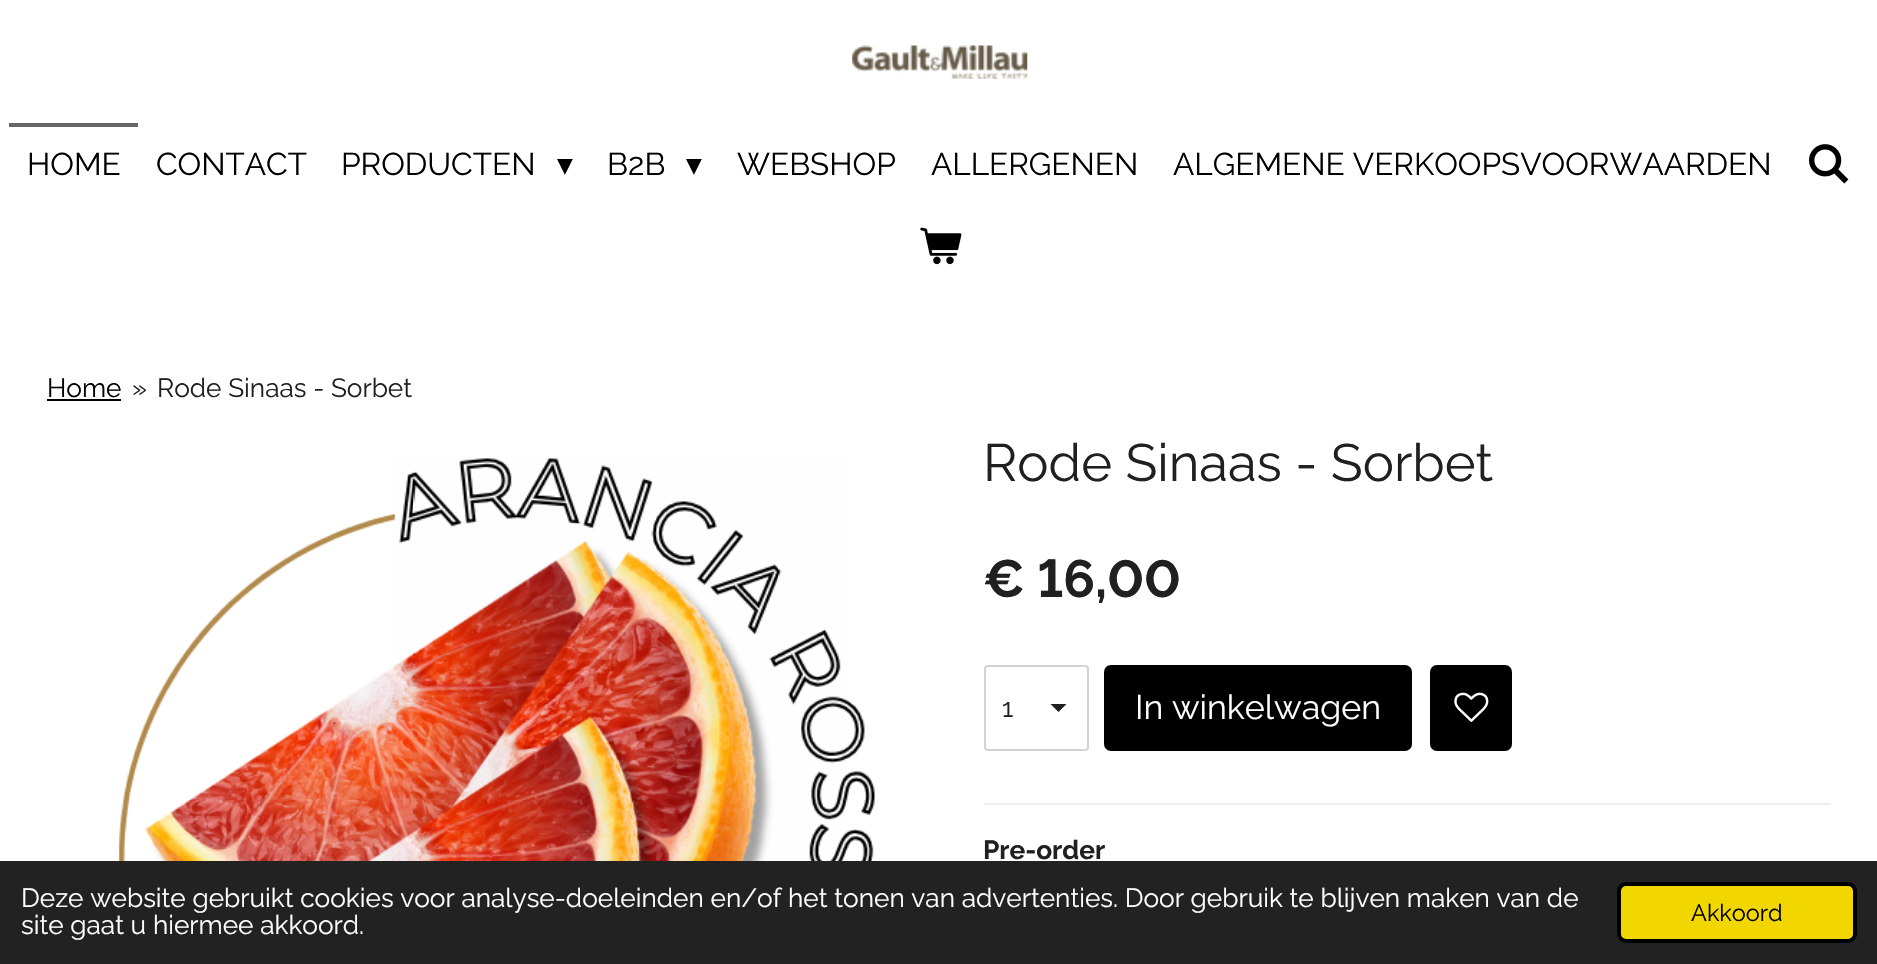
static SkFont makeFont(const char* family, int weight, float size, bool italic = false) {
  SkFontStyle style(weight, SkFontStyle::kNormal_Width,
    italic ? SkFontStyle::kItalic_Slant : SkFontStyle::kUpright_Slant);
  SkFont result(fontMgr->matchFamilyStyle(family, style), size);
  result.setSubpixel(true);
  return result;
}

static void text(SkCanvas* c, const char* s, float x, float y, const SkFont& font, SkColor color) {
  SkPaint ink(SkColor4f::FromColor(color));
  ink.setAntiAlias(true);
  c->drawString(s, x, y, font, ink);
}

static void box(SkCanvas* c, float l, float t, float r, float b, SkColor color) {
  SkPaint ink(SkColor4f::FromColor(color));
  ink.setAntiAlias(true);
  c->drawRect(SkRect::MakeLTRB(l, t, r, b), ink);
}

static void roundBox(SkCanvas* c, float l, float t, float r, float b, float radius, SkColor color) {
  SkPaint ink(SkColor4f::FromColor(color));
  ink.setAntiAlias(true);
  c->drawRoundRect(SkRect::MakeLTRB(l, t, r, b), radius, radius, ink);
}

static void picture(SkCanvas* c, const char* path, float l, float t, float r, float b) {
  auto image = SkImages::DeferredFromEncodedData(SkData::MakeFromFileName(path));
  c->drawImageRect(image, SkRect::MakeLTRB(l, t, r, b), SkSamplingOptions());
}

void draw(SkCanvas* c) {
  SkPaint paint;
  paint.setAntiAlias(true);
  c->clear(0xffffffff);
  picture(c, "img_01.png", 852, 45, 1028, 79);
  box(c, 9, 123, 138, 127, 0xff676767);
  SkFont face1 = makeFont("Raleway", 400, 31.5f);
  text(c, "HOME", 27, 175, face1, 0xff000000);
  text(c, "CONTACT", 156, 175, face1, 0xff000000);
  text(c, "PRODUCTEN", 341, 175, face1, 0xff000000);
  SkFont face2 = makeFont("DejaVu Sans", 400, 31.5f);
  text(c, "▾", 557, 175, face2, 0xff000000);
  text(c, "B2B", 607, 175, face1, 0xff000000);
  text(c, "▾", 686, 175, face2, 0xff000000);
  text(c, "WEBSHOP", 737, 175, face1, 0xff000000);
  text(c, "ALLERGENEN", 931, 175, face1, 0xff000000);
  text(c, "ALGEMENE VERKOOPSVOORWAARDEN", 1173, 175, face1, 0xff000000);
  picture(c, "img_02.png", 1809, 144, 1849, 184);
  picture(c, "img_03.png", 920, 227, 962, 265);
  SkFont face3 = makeFont("Raleway", 400, 26.25f);
  text(c, "Home", 47, 397, face3, 0xff000000);
  box(c, 47, 399, 121, 401, 0xff000000);
  text(c, "»", 132, 397, face3, 0xff202020);
  text(c, "Rode Sinaas - Sorbet", 157, 397, face3, 0xff202020);
  picture(c, "img_04.png", 118, 458, 875, 861);
  SkFont face4 = makeFont("Raleway", 400, 52.5f);
  text(c, "Rode Sinaas - Sorbet", 983, 481, face4, 0xff202020);
  SkFont face5 = makeFont("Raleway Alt", 700, 52.5f);
  text(c, "€ 16,00", 983, 597, face5, 0xff202020);
  paint.setColor(0xff202020);
  c->drawPath(SkPathBuilder().moveTo(1058.5f, 712).lineTo(1050.5f, 704).lineTo(1066.5f, 704).close().detach(), paint);
  paint.setStyle(SkPaint::kStroke_Style);
  paint.setStrokeWidth(2);
  paint.setColor(0xffd3d3d3);
  c->drawRoundRect(SkRect::MakeLTRB(985, 666, 1088, 750), 3, 3, paint);
  text(c, "1", 1002, 717, face3, 0xff202020);
  roundBox(c, 1104, 665, 1412, 751, 7, 0xff000000);
  SkFont face6 = makeFont("Raleway", 400, 34);
  text(c, "In winkelwagen", 1135, 719, face6, 0xffffffff);
  roundBox(c, 1430, 665, 1512, 751, 7, 0xff000000);
  picture(c, "img_05.png", 1454, 692, 1489, 722);
  box(c, 984, 803, 1831, 805, 0xffefefef);
  SkFont face7 = makeFont("Raleway", 700, 26.25f);
  text(c, "Pre-order", 983, 859, face7, 0xff202020);
  box(c, 0, 861, 1877, 964, 0xff222222);
  text(c, "Deze website gebruikt cookies voor analyse-doeleinden en/of het tonen van advertenties. Door gebruik te blijven maken van de", 21, 907, face3, 0xffffffff);
  text(c, "site gaat u hiermee akkoord.", 21, 934, face3, 0xffffffff);
  paint.setStyle(SkPaint::kFill_Style);
  paint.setColor(0xfff1d600);
  c->drawRoundRect(SkRect::MakeLTRB(1619, 884, 1855, 941), 7, 7, paint);
  paint.setStyle(SkPaint::kStroke_Style);
  paint.setStrokeWidth(4);
  paint.setColor(0xff000000);
  c->drawRoundRect(SkRect::MakeLTRB(1619, 884, 1855, 941), 7, 7, paint);
  SkFont face8 = makeFont("Raleway", 400, 23.5f);
  text(c, "Akkoord", 1691, 921, face8, 0xff000000);
}
